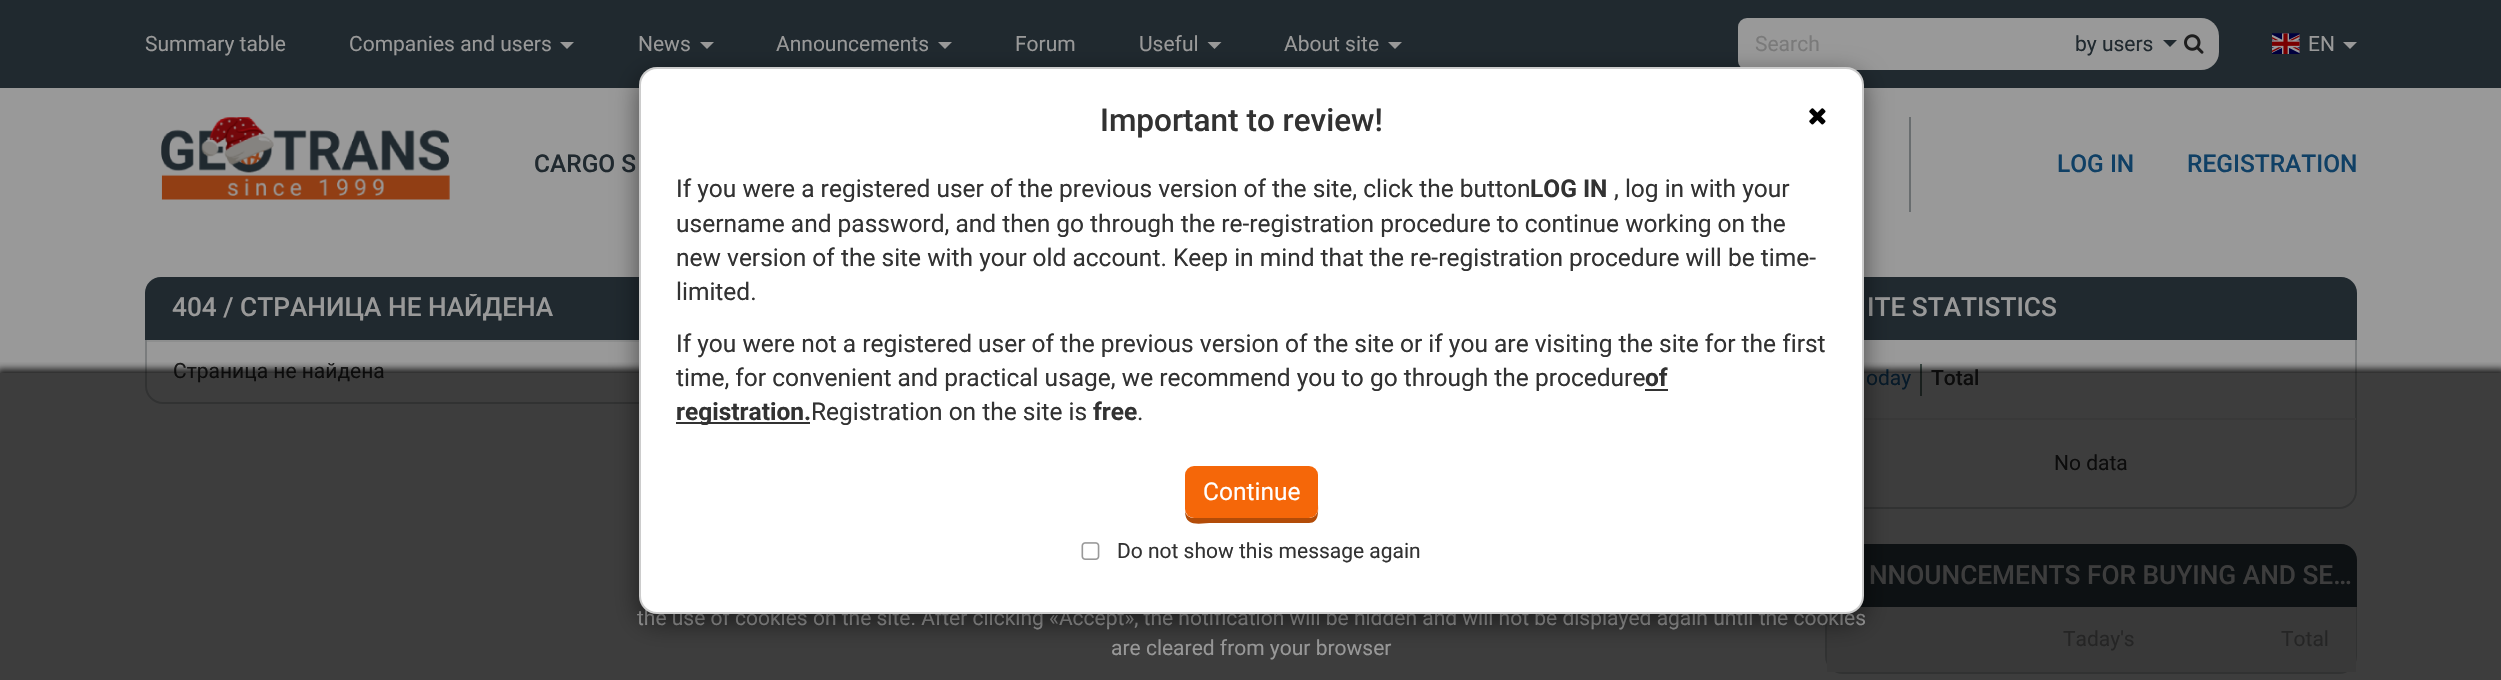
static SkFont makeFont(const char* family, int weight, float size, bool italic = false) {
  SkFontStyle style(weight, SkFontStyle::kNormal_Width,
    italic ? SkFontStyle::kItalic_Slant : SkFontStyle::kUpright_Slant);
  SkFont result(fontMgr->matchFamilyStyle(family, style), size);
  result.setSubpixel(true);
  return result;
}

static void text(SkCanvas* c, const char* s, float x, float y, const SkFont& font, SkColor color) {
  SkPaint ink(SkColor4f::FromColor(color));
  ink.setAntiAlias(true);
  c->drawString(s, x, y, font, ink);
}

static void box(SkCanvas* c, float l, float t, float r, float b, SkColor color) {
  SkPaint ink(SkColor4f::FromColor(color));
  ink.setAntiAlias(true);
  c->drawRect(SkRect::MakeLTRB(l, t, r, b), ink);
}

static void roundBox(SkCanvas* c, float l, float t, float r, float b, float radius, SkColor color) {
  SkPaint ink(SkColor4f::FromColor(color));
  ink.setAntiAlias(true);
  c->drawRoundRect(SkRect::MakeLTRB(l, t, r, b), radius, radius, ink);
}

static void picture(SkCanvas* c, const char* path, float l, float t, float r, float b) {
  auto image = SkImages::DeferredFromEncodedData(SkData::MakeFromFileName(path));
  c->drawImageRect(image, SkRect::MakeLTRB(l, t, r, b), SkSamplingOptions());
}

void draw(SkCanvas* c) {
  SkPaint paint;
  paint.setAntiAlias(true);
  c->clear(0xff999999);
  box(c, 0, 0, 2501, 88, 0xff20292f);
  SkFont face1 = makeFont("Roboto", 400, 21);
  text(c, "Summary table", 145, 51, face1, 0xff999999);
  text(c, "Companies and users", 349, 51, face1, 0xff999999);
  paint.setColor(0xff999999);
  c->drawPath(SkPathBuilder().moveTo(560, 42).lineTo(574, 42).lineTo(567, 49).close().detach(), paint);
  text(c, "News", 638, 51, face1, 0xff999999);
  c->drawPath(SkPathBuilder().moveTo(700, 42).lineTo(714, 42).lineTo(707, 49).close().detach(), paint);
  text(c, "Announcements", 776, 51, face1, 0xff999999);
  c->drawPath(SkPathBuilder().moveTo(938, 42).lineTo(952, 42).lineTo(945, 49).close().detach(), paint);
  text(c, "Forum", 1015, 51, face1, 0xff999999);
  text(c, "Useful", 1139, 51, face1, 0xff999999);
  c->drawPath(SkPathBuilder().moveTo(1207.5f, 42).lineTo(1221.5f, 42).lineTo(1214.5f, 49).close().detach(), paint);
  text(c, "About site", 1284, 51, face1, 0xff999999);
  c->drawPath(SkPathBuilder().moveTo(1388, 42).lineTo(1402, 42).lineTo(1395, 49).close().detach(), paint);
  roundBox(c, 1738, 18, 2219, 70, 18, 0xff999999);
  roundBox(c, 1738, 18, 1967, 70, 9, 0xff999999);
  text(c, "Search", 1755, 51, face1, 0xff7a7a7a);
  text(c, "by users", 2075, 51, face1, 0xff20292f);
  paint.setColor(0xff20292f);
  c->drawPath(SkPathBuilder().moveTo(2163, 40).lineTo(2177, 40).lineTo(2170, 47).close().detach(), paint);
  picture(c, "img_01.png", 2184, 34, 2204, 54);
  picture(c, "img_02.png", 2272, 33, 2300, 54);
  text(c, "EN", 2308, 51, face1, 0xff999999);
  paint.setColor(0xff999999);
  c->drawPath(SkPathBuilder().moveTo(2343, 42).lineTo(2357, 42).lineTo(2350, 49).close().detach(), paint);
  picture(c, "img_03.png", 161, 117, 450, 200);
  SkFont face2 = makeFont("Roboto", 500, 24.5f);
  text(c, "CARGO S", 534, 172, face2, 0xff20292f);
  box(c, 1909, 117, 1911, 212, 0xff696d6f);
  text(c, "LOG IN", 2057, 172, face2, 0xff104065);
  text(c, "REGISTRATION", 2187, 172, face2, 0xff104065);
  paint.setStyle(SkPaint::kStroke_Style);
  paint.setStrokeWidth(2);
  paint.setColor(0xff7a7c7d);
  c->drawRoundRect(SkRect::MakeLTRB(146, 278, 1796, 403), 17, 17, paint);
  paint.setStyle(SkPaint::kFill_Style);
  paint.setColor(0xff20292f);
  c->drawPath(SkPathBuilder().moveTo(161, 277).lineTo(1781, 277).cubicTo(1790, 277, 1797, 284, 1797, 293).lineTo(1797, 340).lineTo(145, 340).lineTo(145, 293).cubicTo(145, 284, 152, 277, 161, 277).close().detach(), paint);
  c->save();
  c->clipRect(SkRect::MakeLTRB(172, 294, 1797, 322));
  SkFont face3 = makeFont("Roboto", 500, 26.25f);
  text(c, "404 / СТРАНИЦА НЕ НАЙДЕНА", 172, 316, face3, 0xff999999);
  c->restore();
  box(c, 147, 340, 639, 342, 0xff8d8e8e);
  text(c, "Страница не найдена", 173, 378, face1, 0xff1e1e1e);
  paint.setStyle(SkPaint::kStroke_Style);
  paint.setColor(0xff7a7c7d);
  c->drawRoundRect(SkRect::MakeLTRB(1826, 278, 2356, 508), 17, 17, paint);
  paint.setStyle(SkPaint::kFill_Style);
  paint.setColor(0xff20292f);
  c->drawPath(SkPathBuilder().moveTo(1841, 277).lineTo(2341, 277).cubicTo(2350, 277, 2357, 284, 2357, 293).lineTo(2357, 340).lineTo(1825, 340).lineTo(1825, 293).cubicTo(1825, 284, 1832, 277, 1841, 277).close().detach(), paint);
  text(c, "ITE STATISTICS", 1867, 316, face3, 0xff999999);
  box(c, 1864, 418, 2356, 420, 0xff8d8e8e);
  text(c, "oday", 1866, 385, face1, 0xff104065);
  box(c, 1920, 364, 1922, 396, 0xff3d4c47);
  SkFont face4 = makeFont("Roboto", 500, 21);
  text(c, "Total", 1931, 385, face4, 0xff1e1e1e);
  text(c, "No data", 2054, 470, face1, 0xff1e1e1e);
  paint.setStyle(SkPaint::kStroke_Style);
  paint.setColor(0xff7a7c7d);
  c->drawRoundRect(SkRect::MakeLTRB(1826, 545, 2356, 673), 17, 17, paint);
  paint.setStyle(SkPaint::kFill_Style);
  paint.setColor(0xff20292f);
  c->drawPath(SkPathBuilder().moveTo(1841, 544).lineTo(2341, 544).cubicTo(2350, 544, 2357, 551, 2357, 560).lineTo(2357, 607).lineTo(1825, 607).lineTo(1825, 560).cubicTo(1825, 551, 1832, 544, 1841, 544).close().detach(), paint);
  text(c, "NNOUNCEMENTS FOR BUYING AND SE…", 1869, 584, face3, 0xff999999);
  box(c, 1827, 607, 2356, 672, 0xff8d8e8e);
  text(c, "Taday's", 2063, 646, face1, 0xff5c5c5c);
  text(c, "Total", 2281, 646, face1, 0xff5c5c5c);
  c->save();
  c->clipRect(SkRect::MakeLTRB(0, 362, 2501, 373));
  paint.setColor(0xcc000000);
  paint.setMaskFilter(SkMaskFilter::MakeBlur(kNormal_SkBlurStyle, 3.5f));
  c->drawRect(SkRect::MakeLTRB(-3, 369, 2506, 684), paint);
  paint.setMaskFilter(nullptr);
  c->restore();
  box(c, 0, 373, 2501, 680, 0x99000000);
  text(c, "the use of cookies on the site. After clicking «Accept», the notification will be hidden and will not be displayed again until the cookies", 637, 625, face1, 0xff999999);
  text(c, "are cleared from your browser", 1111, 655, face1, 0xff999999);
  roundBox(c, 639, 67, 1864, 614, 18, 0xffffffff);
  c->save();
  c->clipPath(SkPathBuilder(SkPathFillType::kEvenOdd).moveTo(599, 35).lineTo(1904, 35).lineTo(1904, 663).lineTo(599, 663).close().moveTo(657, 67).lineTo(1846, 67).cubicTo(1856, 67, 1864, 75, 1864, 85).lineTo(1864, 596).cubicTo(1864, 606, 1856, 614, 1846, 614).lineTo(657, 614).cubicTo(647, 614, 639, 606, 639, 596).lineTo(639, 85).cubicTo(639, 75, 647, 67, 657, 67).close().detach(), true);
  paint.setColor(0x80000000);
  paint.setMaskFilter(SkMaskFilter::MakeBlur(kNormal_SkBlurStyle, 13));
  c->drawRoundRect(SkRect::MakeLTRB(639, 75, 1864, 623), 18, 18, paint);
  paint.setMaskFilter(nullptr);
  c->restore();
  paint.setStyle(SkPaint::kStroke_Style);
  paint.setColor(0x33000000);
  c->drawRoundRect(SkRect::MakeLTRB(640, 68, 1863, 613), 17, 17, paint);
  SkFont face5 = makeFont("Roboto", 500, 31.5f);
  text(c, "Important to review!", 1100, 131, face5, 0xff323232);
  picture(c, "img_04.png", 1809, 108, 1826, 125);
  SkFont face6 = makeFont("Roboto", 400, 24.5f);
  text(c, "If you were a registered user of the previous version of the site, click the button", 676, 197, face6, 0xff323232);
  SkFont face7 = makeFont("Roboto", 700, 24.5f);
  text(c, "LOG IN", 1530, 197, face7, 0xff323232);
  text(c, ", log in with your", 1614, 197, face6, 0xff323232);
  text(c, "username and password, and then go through the re-registration procedure to continue working on the", 676, 232, face6, 0xff323232);
  text(c, "new version of the site with your old account. Keep in mind that the re-registration procedure will be time-", 676, 266, face6, 0xff323232);
  text(c, "limited.", 676, 300, face6, 0xff323232);
  text(c, "If you were not a registered user of the previous version of the site or if you are visiting the site for the first", 676, 352, face6, 0xff323232);
  text(c, "time, for convenient and practical usage, we recommend you to go through the procedure", 676, 386, face6, 0xff323232);
  text(c, "of", 1645, 386, face7, 0xff323232);
  box(c, 1645, 389, 1668, 391, 0xff323232);
  box(c, 676, 422, 810, 424, 0xff323232);
  text(c, "registration.", 676, 420, face7, 0xff323232);
  text(c, "Registration on the site is", 811, 420, face6, 0xff323232);
  text(c, "free", 1093, 420, face7, 0xff323232);
  text(c, ".", 1137, 420, face6, 0xff323232);
  paint.setStyle(SkPaint::kFill_Style);
  paint.setColor(0xffb34c08);
  c->drawPath(SkPathBuilder().moveTo(1185, 511).cubicTo(1185, 528, 1200, 523, 1213, 523).lineTo(1309, 523).cubicTo(1320, 523, 1318, 510, 1318, 503).lineTo(1318, 478).lineTo(1318, 509).cubicTo(1318, 514, 1314, 518, 1309, 518).lineTo(1194, 518).cubicTo(1189, 518, 1186, 515, 1185, 511).close().detach(), paint);
  roundBox(c, 1185, 466, 1318, 518, 9, 0xfff56709);
  text(c, "Continue", 1203, 500, face6, 0xffffffff);
  picture(c, "img_05.png", 1081, 542, 1100, 560);
  text(c, "Do not show this message again", 1117, 558, face1, 0xff323232);
}
